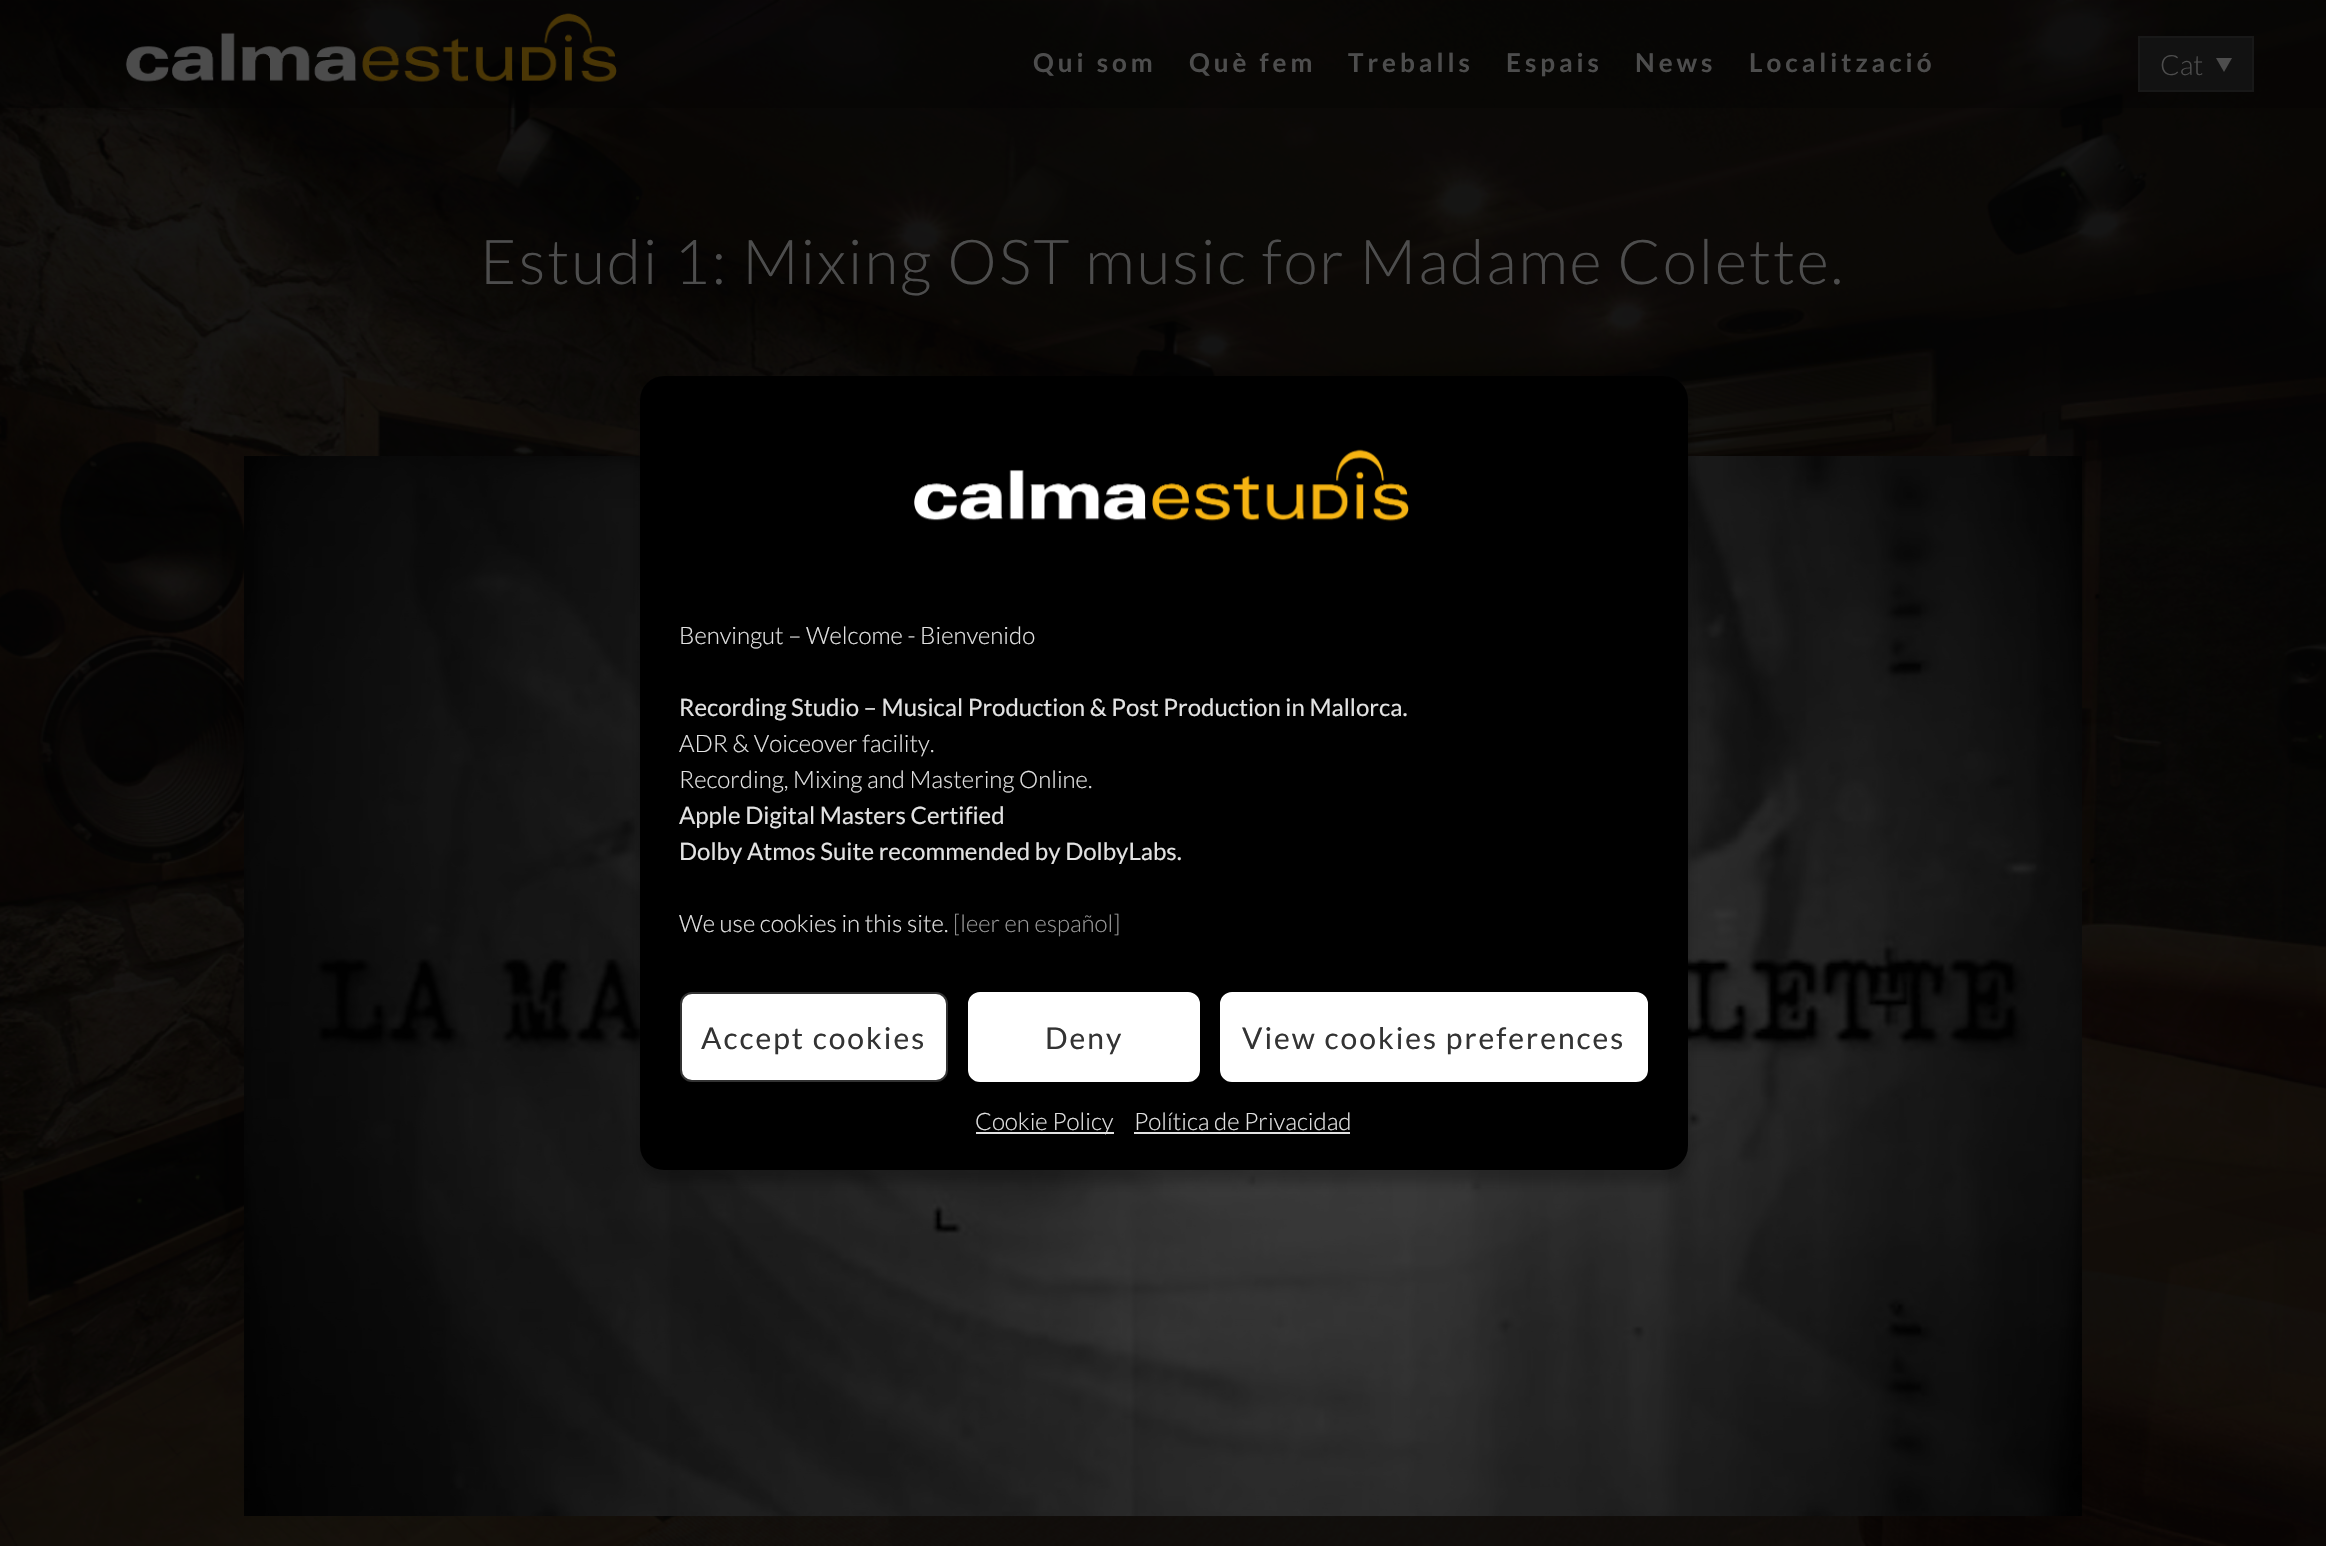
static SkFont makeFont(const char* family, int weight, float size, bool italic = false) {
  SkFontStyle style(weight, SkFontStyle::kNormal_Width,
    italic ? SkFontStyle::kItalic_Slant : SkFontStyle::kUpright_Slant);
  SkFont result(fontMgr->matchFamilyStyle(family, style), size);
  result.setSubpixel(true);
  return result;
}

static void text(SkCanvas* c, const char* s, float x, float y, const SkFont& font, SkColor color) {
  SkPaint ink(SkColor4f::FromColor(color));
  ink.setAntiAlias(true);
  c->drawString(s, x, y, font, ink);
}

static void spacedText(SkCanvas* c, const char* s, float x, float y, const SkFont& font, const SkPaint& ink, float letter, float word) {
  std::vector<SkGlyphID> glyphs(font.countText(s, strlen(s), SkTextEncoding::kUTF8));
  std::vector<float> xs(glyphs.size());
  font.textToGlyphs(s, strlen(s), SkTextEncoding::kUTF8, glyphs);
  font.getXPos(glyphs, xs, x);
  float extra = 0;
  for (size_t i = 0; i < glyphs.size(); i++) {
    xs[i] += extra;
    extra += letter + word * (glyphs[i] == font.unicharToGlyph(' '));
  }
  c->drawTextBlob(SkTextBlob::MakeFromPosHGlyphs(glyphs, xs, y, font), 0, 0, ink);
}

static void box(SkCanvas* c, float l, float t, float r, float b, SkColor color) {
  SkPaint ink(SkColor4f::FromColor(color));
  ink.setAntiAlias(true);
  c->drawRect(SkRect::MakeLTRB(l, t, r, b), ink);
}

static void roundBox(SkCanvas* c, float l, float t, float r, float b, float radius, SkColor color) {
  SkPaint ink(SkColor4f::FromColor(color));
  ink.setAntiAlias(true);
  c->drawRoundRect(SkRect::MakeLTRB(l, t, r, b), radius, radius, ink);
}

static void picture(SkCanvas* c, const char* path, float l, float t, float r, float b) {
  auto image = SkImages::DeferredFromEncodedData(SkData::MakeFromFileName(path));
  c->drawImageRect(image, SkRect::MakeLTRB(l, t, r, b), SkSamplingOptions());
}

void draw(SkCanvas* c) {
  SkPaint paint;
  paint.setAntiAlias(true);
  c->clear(0xffffffff);
  picture(c, "img_01.png", 0, 0, 2326, 1546);
  picture(c, "img_02.png", 0, 0, 2326, 1546);
  box(c, 0, 0, 2326, 108, 0x4d000000);
  picture(c, "img_03.png", 125, 13, 617, 82);
  SkFont face1 = makeFont("Lato", 700, 26);
  paint.setColor(0xff4d4d4d);
  spacedText(c, "Qui som", 1033, 72, face1, paint, 4, 0);
  spacedText(c, "Què fem", 1189, 72, face1, paint, 4, 0);
  spacedText(c, "Treballs", 1348, 72, face1, paint, 4, 0);
  spacedText(c, "Espais", 1506, 72, face1, paint, 4, 0);
  spacedText(c, "News", 1635, 72, face1, paint, 4, 0);
  spacedText(c, "Localització", 1749, 72, face1, paint, 4, 0);
  paint.setColor(0xff121212);
  c->drawRect(SkRect::MakeLTRB(2139, 37, 2253, 91), paint);
  paint.setStyle(SkPaint::kStroke_Style);
  paint.setStrokeWidth(2);
  paint.setColor(0xff181818);
  c->drawRect(SkRect::MakeLTRB(2139, 37, 2253, 91), paint);
  SkFont face2 = makeFont("Lato", 300, 28);
  text(c, "Cat", 2160, 75, face2, 0xff4d4d4d);
  paint.setStyle(SkPaint::kFill_Style);
  paint.setColor(0xff4d4d4d);
  c->drawPath(SkPathBuilder().moveTo(2216, 58).lineTo(2232, 58).lineTo(2224, 72).close().detach(), paint);
  SkFont face3 = makeFont("Lato", 300, 62);
  spacedText(c, "Estudi 1: Mixing OST music for Madame Colette.", 480, 284, face3, paint, 2, 0);
  picture(c, "img_04.png", 244, 456, 2082, 1516);
  paint.setColor(0x3b000000);
  paint.setMaskFilter(SkMaskFilter::MakeBlur(kNormal_SkBlurStyle, 6));
  c->drawRoundRect(SkRect::MakeLTRB(640, 388, 1688, 1182), 24, 24, paint);
  paint.setMaskFilter(nullptr);
  roundBox(c, 640, 376, 1688, 1170, 24, 0xff000000);
  picture(c, "img_05.png", 914, 449, 1409, 522);
  SkFont face4 = makeFont("Lato", 300, 24);
  text(c, "Benvingut – Welcome - Bienvenido", 679, 644, face4, 0xffe2e2e2);
  SkFont face5 = makeFont("Lato", 400, 24);
  text(c, "Recording Studio – Musical Production & Post Production in Mallorca.", 679, 716, face5, 0xffe2e2e2);
  text(c, "ADR & Voiceover facility.", 679, 752, face4, 0xffe2e2e2);
  text(c, "Recording, Mixing and Mastering Online.", 679, 788, face4, 0xffe2e2e2);
  text(c, "Apple Digital Masters Certified", 679, 824, face5, 0xffe2e2e2);
  text(c, "Dolby Atmos Suite recommended by DolbyLabs.", 679, 860, face5, 0xffe2e2e2);
  text(c, "We use cookies in this site.", 679, 932, face4, 0xffe2e2e2);
  text(c, "[leer en español]", 953, 932, face4, 0xff999999);
  paint.setColor(0xffffffff);
  c->drawRoundRect(SkRect::MakeLTRB(681, 993, 947, 1081), 11, 11, paint);
  paint.setStyle(SkPaint::kStroke_Style);
  paint.setColor(0xff333333);
  c->drawRoundRect(SkRect::MakeLTRB(681, 993, 947, 1081), 11, 11, paint);
  SkFont face6 = makeFont("Lato", 400, 30);
  paint.setStyle(SkPaint::kFill_Style);
  spacedText(c, "Accept cookies", 701, 1049, face6, paint, 2, 0);
  paint.setColor(0xffffffff);
  c->drawRoundRect(SkRect::MakeLTRB(969, 993, 1199, 1081), 11, 11, paint);
  paint.setStyle(SkPaint::kStroke_Style);
  c->drawRoundRect(SkRect::MakeLTRB(969, 993, 1199, 1081), 11, 11, paint);
  paint.setStyle(SkPaint::kFill_Style);
  paint.setColor(0xff333333);
  spacedText(c, "Deny", 1045, 1049, face6, paint, 2, 0);
  paint.setColor(0xffffffff);
  c->drawRoundRect(SkRect::MakeLTRB(1221, 993, 1647, 1081), 11, 11, paint);
  paint.setStyle(SkPaint::kStroke_Style);
  c->drawRoundRect(SkRect::MakeLTRB(1221, 993, 1647, 1081), 11, 11, paint);
  paint.setStyle(SkPaint::kFill_Style);
  paint.setColor(0xff333333);
  spacedText(c, "View cookies preferences", 1242, 1049, face6, paint, 2, 0);
  box(c, 976, 1132, 1114, 1134, 0xffe2e2e2);
  text(c, "Cookie Policy", 975, 1130, face4, 0xffe2e2e2);
  text(c, "Política de Privacidad", 1134, 1130, face4, 0xffe2e2e2);
  box(c, 1134, 1132, 1350, 1134, 0xffe2e2e2);
}
